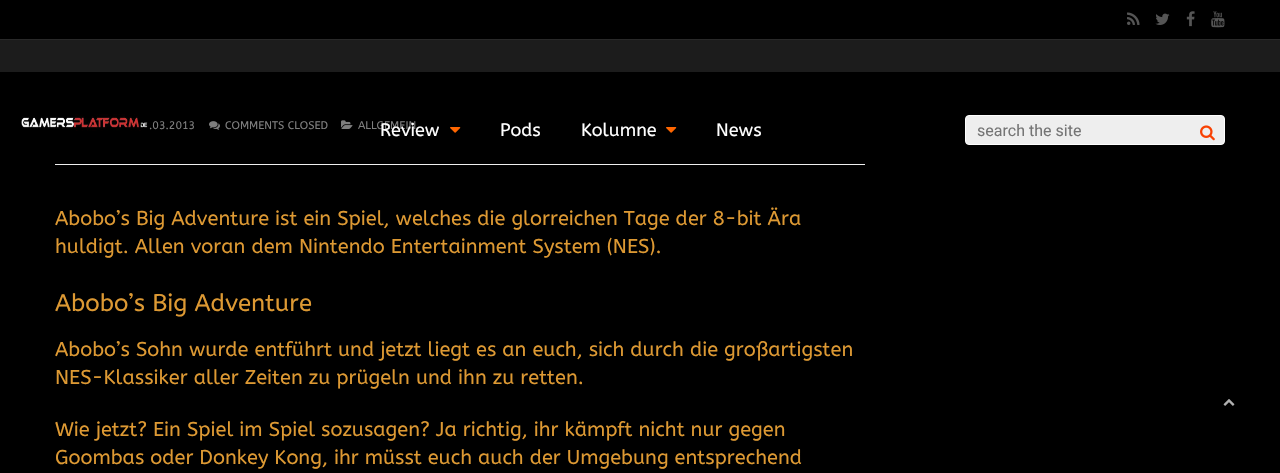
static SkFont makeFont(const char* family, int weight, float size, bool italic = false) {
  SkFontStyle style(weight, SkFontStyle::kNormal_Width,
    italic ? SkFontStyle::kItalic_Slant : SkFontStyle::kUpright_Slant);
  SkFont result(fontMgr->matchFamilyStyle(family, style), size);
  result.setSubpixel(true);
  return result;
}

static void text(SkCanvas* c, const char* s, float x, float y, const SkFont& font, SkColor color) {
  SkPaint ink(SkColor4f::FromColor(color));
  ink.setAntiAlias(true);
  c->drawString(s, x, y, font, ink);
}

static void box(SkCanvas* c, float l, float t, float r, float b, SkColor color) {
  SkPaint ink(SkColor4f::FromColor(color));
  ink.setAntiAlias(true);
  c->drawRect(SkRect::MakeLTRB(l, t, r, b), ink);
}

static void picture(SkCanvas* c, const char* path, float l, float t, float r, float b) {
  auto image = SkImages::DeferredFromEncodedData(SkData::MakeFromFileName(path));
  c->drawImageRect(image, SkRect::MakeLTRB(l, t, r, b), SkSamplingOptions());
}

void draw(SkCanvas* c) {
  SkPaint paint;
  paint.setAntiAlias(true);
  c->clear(0xff000000);
  box(c, 0, 39, 1280, 40, 0xff292929);
  picture(c, "img_01.png", 1127, 12, 1140, 25);
  picture(c, "img_02.png", 1155, 13, 1170, 25);
  picture(c, "img_03.png", 1186, 11, 1195, 27);
  picture(c, "img_04.png", 1211, 11, 1225, 28);
  box(c, 55, 164, 865, 165, 0xffeeeeee);
  SkFont face1 = makeFont("ABeeZee", 400, 11);
  text(c, ".03.2013", 149, 129, face1, 0xff7e7e7e);
  picture(c, "img_05.png", 209, 121, 220, 130);
  text(c, "COMMENTS CLOSED", 225, 129, face1, 0xff7e7e7e);
  picture(c, "img_06.png", 341, 120, 353, 129);
  text(c, "ALLGEMEIN", 358, 129, face1, 0xff7e7e7e);
  SkFont face2 = makeFont("ABeeZee", 400, 20);
  text(c, "Abobo’s Big Adventure ist ein Spiel, welches die glorreichen Tage der 8-bit Ära", 55, 225, face2, 0xffdd9933);
  text(c, "huldigt. Allen voran dem Nintendo Entertainment System (NES).", 55, 253, face2, 0xffdd9933);
  SkFont face3 = makeFont("ABeeZee", 400, 24);
  text(c, "Abobo’s Big Adventure", 55, 311, face3, 0xffdd9933);
  text(c, "Abobo’s Sohn wurde entführt und jetzt liegt es an euch, sich durch die großartigsten", 55, 356, face2, 0xffdd9933);
  text(c, "NES-Klassiker aller Zeiten zu prügeln und ihn zu retten.", 55, 384, face2, 0xffdd9933);
  text(c, "Wie jetzt? Ein Spiel im Spiel sozusagen? Ja richtig, ihr kämpft nicht nur gegen", 55, 436, face2, 0xffdd9933);
  text(c, "Goombas oder Donkey Kong, ihr müsst euch auch der Umgebung entsprechend", 55, 464, face2, 0xffdd9933);
  box(c, 0, 40, 1280, 72, 0xff1c1c1c);
  picture(c, "img_07.png", 21, 114, 149, 131);
  SkFont face4 = makeFont("ABeeZee", 400, 18);
  text(c, "Review", 380, 136, face4, 0xffffffff);
  picture(c, "img_08.png", 450, 127, 461, 133);
  text(c, "Pods", 500, 136, face4, 0xffffffff);
  text(c, "Kolumne", 581, 136, face4, 0xffffffff);
  picture(c, "img_08.png", 666, 127, 677, 133);
  text(c, "News", 716, 136, face4, 0xffffffff);
  paint.setColor(0xffeeeeee);
  c->drawRoundRect(SkRect::MakeLTRB(965.5f, 115.5f, 1224.5f, 144.5f), 3.5f, 3.5f, paint);
  paint.setStyle(SkPaint::kStroke_Style);
  paint.setStrokeWidth(1);
  paint.setColor(0xffffffff);
  c->drawRoundRect(SkRect::MakeLTRB(965.5f, 115.5f, 1224.5f, 144.5f), 3.5f, 3.5f, paint);
  SkFont face5 = makeFont("Roboto", 400, 16);
  text(c, "search the site", 977, 136, face5, 0xff757575);
  picture(c, "img_09.png", 1200, 125, 1215, 141);
  picture(c, "img_10.png", 1223, 399, 1235, 406);
}
